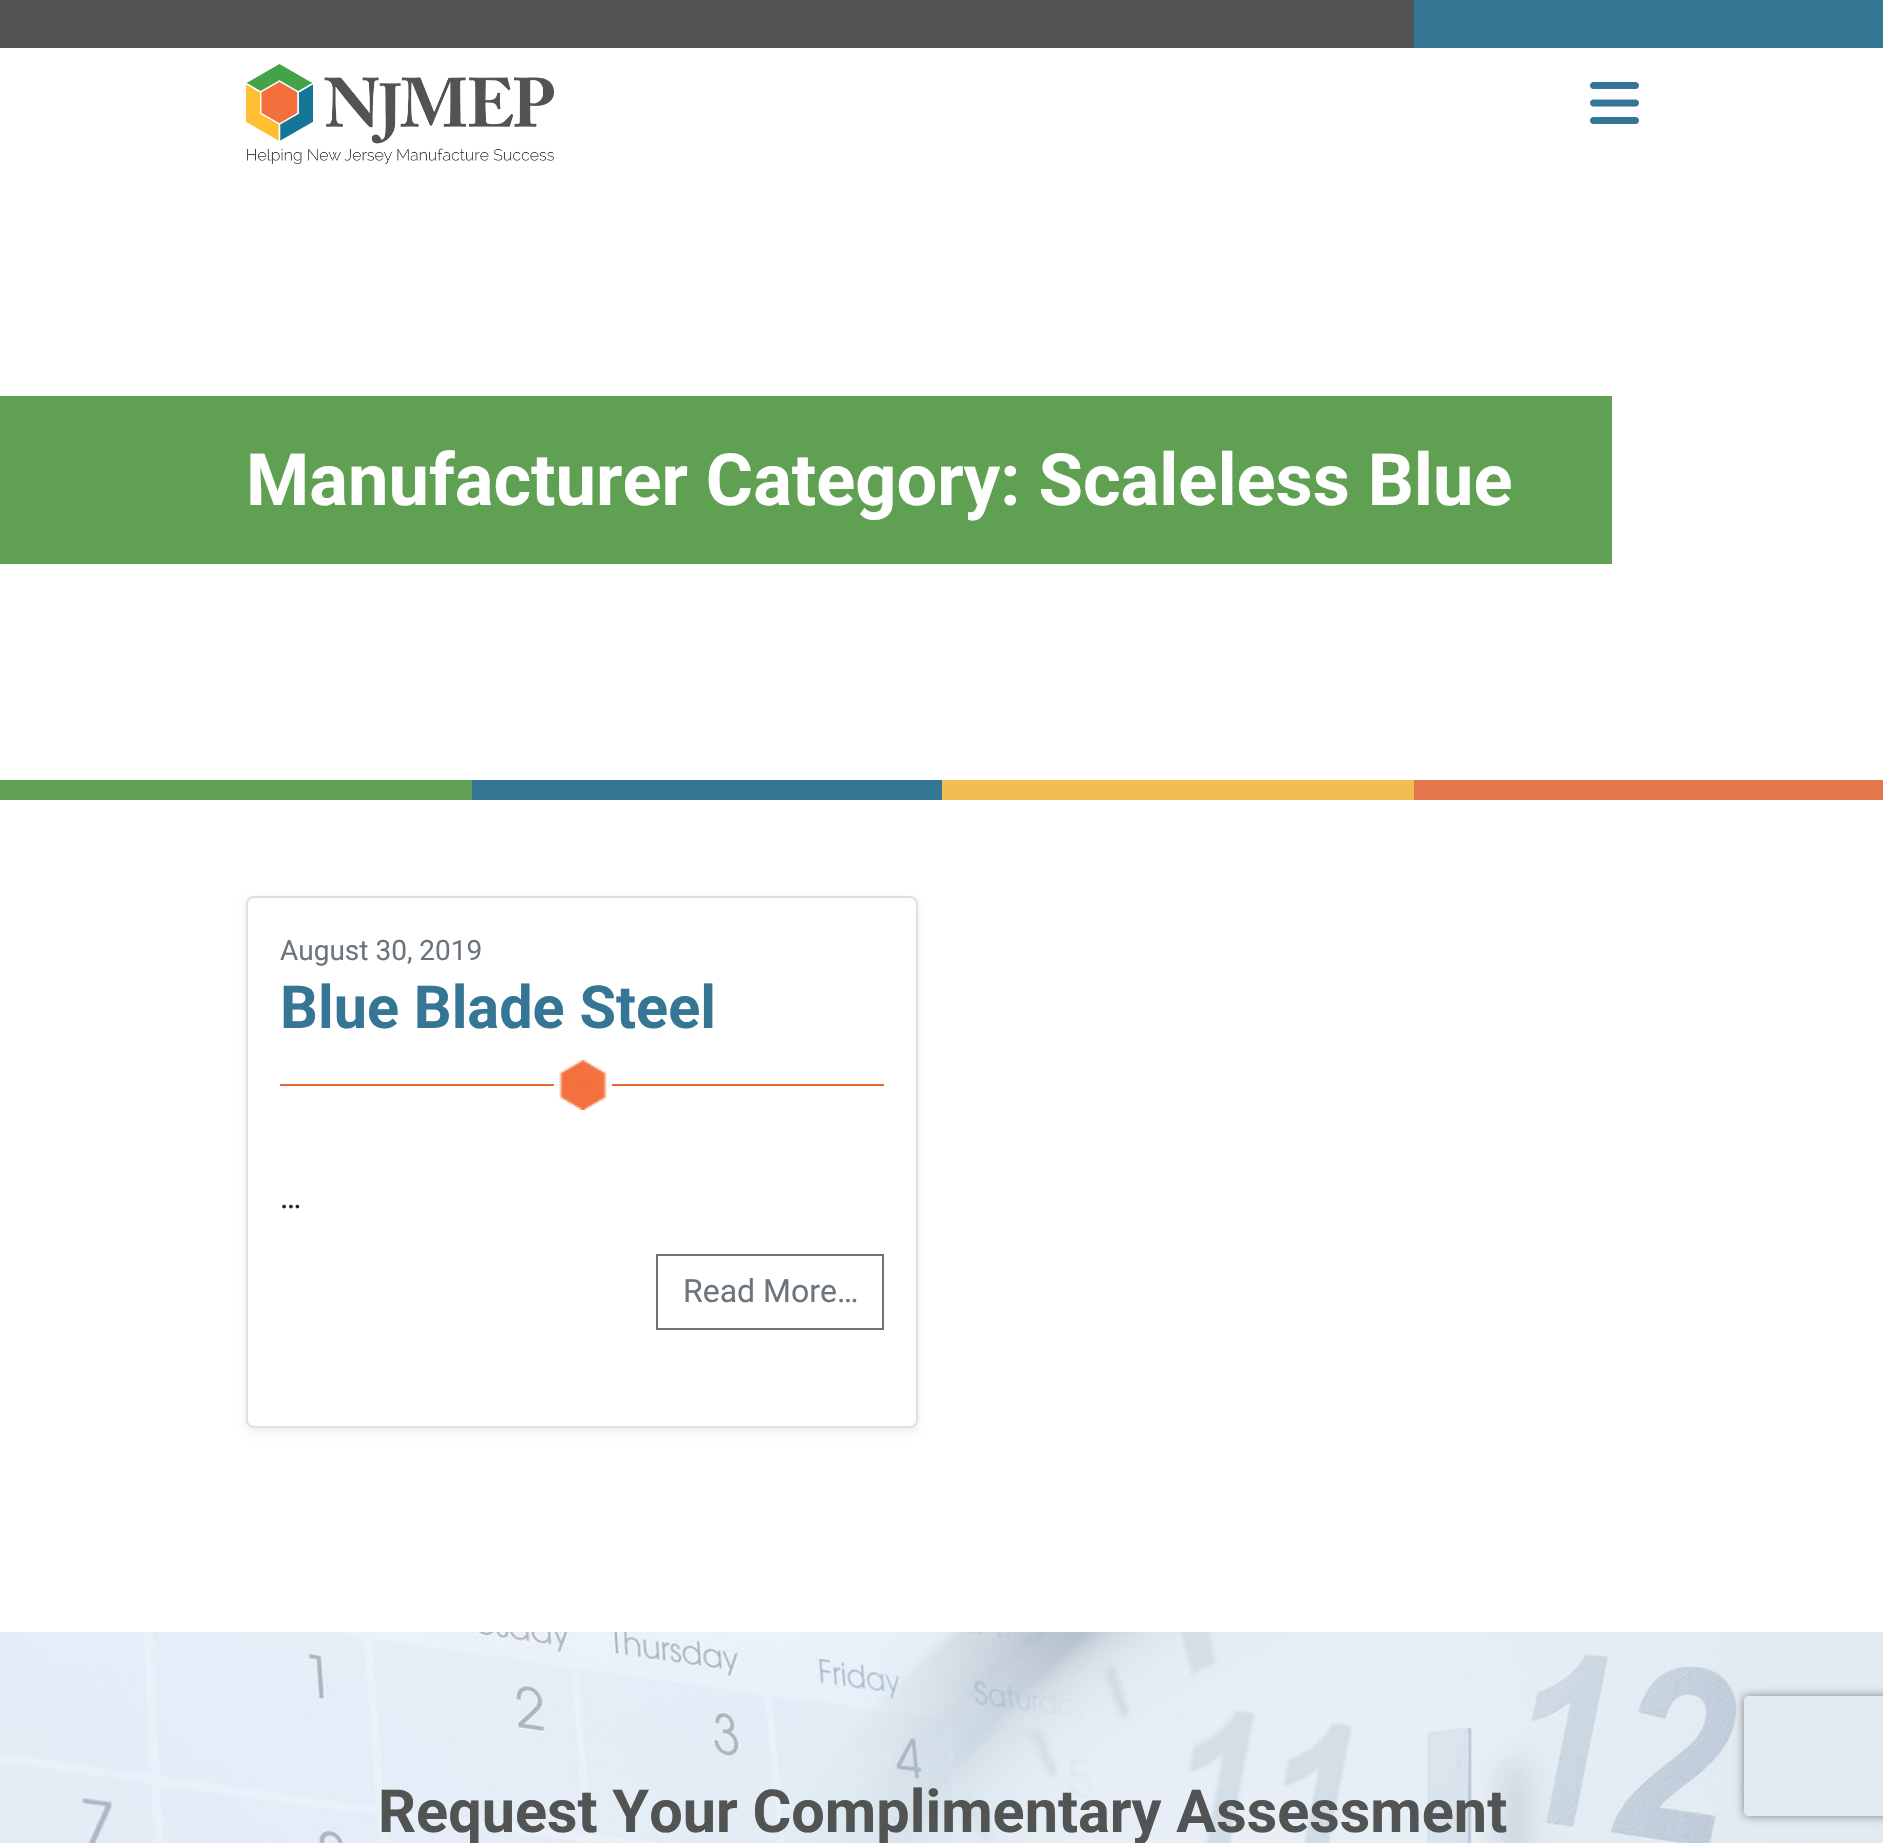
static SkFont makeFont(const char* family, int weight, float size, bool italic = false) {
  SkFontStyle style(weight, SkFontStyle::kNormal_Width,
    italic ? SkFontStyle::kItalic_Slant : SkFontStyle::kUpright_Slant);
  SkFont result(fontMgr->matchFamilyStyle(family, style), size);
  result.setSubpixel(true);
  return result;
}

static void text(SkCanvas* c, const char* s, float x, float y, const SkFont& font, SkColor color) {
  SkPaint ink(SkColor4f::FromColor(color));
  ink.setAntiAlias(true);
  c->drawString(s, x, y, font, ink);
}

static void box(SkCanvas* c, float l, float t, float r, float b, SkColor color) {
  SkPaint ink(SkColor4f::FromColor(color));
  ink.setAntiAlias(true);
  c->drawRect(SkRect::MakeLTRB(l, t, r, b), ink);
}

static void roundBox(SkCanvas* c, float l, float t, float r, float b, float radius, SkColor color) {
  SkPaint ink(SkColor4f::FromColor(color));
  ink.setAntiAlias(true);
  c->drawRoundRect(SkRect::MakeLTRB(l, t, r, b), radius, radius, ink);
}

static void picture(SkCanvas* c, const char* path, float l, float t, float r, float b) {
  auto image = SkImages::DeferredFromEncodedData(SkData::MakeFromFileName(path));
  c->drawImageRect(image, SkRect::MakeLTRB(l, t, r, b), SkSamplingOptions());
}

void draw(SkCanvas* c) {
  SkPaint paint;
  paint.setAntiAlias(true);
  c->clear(0xffffffff);
  box(c, 0, 0, 1414, 48, 0xff525353);
  box(c, 1414, 0, 1883, 48, 0xff367695);
  picture(c, "img_01.png", 246, 64, 554, 164);
  picture(c, "img_02.png", 1590, 82, 1639, 124);
  box(c, 0, 396, 1612, 564, 0xff60a053);
  SkFont face1 = makeFont("Roboto", 700, 72.25f);
  text(c, "Manufacturer Category: Scaleless Blue", 246, 505, face1, 0xffffffff);
  box(c, 0, 780, 472, 800, 0xff60a053);
  box(c, 472, 780, 942, 800, 0xff367695);
  box(c, 942, 780, 1414, 800, 0xfff2be53);
  box(c, 1414, 780, 1883, 800, 0xffe3764a);
  paint.setColor(0x12000000);
  paint.setMaskFilter(SkMaskFilter::MakeBlur(kNormal_SkBlurStyle, 4));
  c->drawRoundRect(SkRect::MakeLTRB(246, 900, 918, 1432), 8, 8, paint);
  paint.setMaskFilter(nullptr);
  roundBox(c, 246, 896, 918, 1428, 8, 0xffffffff);
  paint.setStyle(SkPaint::kStroke_Style);
  paint.setStrokeWidth(2);
  paint.setColor(0x1f000000);
  c->drawRoundRect(SkRect::MakeLTRB(247, 897, 917, 1427), 7, 7, paint);
  SkFont face2 = makeFont("Roboto", 400, 28);
  text(c, "August 30, 2019", 280, 960, face2, 0xff6c757d);
  SkFont face3 = makeFont("Roboto", 700, 59.4f);
  text(c, "Blue Blade Steel", 280, 1028, face3, 0xff367695);
  box(c, 280, 1084, 884, 1086, 0xffe96738);
  picture(c, "img_03.png", 554, 1060, 612, 1110);
  SkFont face4 = makeFont("Roboto", 400, 32);
  text(c, "…", 280, 1208, face4, 0xff212529);
  paint.setColor(0xff6c757d);
  c->drawRect(SkRect::MakeLTRB(657, 1255, 883, 1329), paint);
  text(c, "Read More…", 683, 1302, face4, 0xff6c757d);
  picture(c, "img_04.png", 0, 1632, 1883, 1843);
  text(c, "Request Your Complimentary Assessment", 378, 1832, face3, 0xff525353);
  c->save();
  c->clipPath(SkPathBuilder(SkPathFillType::kEvenOdd).moveTo(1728, 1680).lineTo(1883, 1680).lineTo(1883, 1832).lineTo(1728, 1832).close().moveTo(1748, 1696).lineTo(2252, 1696).cubicTo(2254, 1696, 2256, 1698, 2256, 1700).lineTo(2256, 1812).cubicTo(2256, 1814, 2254, 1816, 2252, 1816).lineTo(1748, 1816).cubicTo(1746, 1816, 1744, 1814, 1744, 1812).lineTo(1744, 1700).cubicTo(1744, 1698, 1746, 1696, 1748, 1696).close().detach(), true);
  paint.setStyle(SkPaint::kFill_Style);
  paint.setColor(0xff808080);
  paint.setMaskFilter(SkMaskFilter::MakeBlur(kNormal_SkBlurStyle, 5));
  c->drawRoundRect(SkRect::MakeLTRB(1744, 1696, 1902, 1816), 4, 4, paint);
  paint.setMaskFilter(nullptr);
  c->restore();
}
